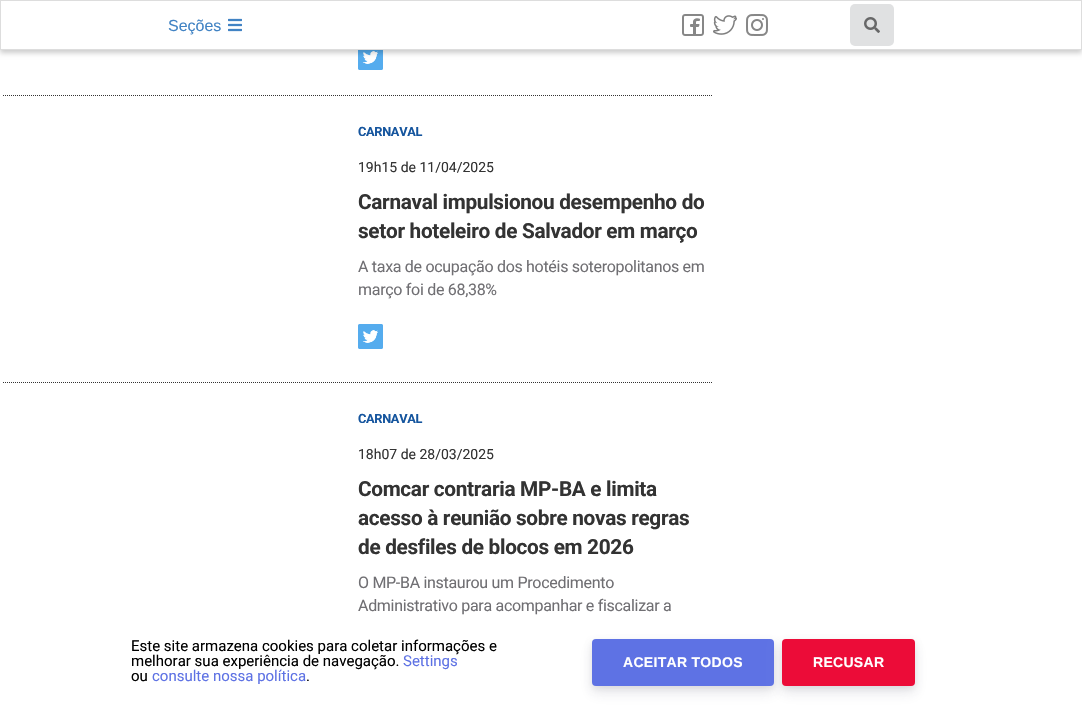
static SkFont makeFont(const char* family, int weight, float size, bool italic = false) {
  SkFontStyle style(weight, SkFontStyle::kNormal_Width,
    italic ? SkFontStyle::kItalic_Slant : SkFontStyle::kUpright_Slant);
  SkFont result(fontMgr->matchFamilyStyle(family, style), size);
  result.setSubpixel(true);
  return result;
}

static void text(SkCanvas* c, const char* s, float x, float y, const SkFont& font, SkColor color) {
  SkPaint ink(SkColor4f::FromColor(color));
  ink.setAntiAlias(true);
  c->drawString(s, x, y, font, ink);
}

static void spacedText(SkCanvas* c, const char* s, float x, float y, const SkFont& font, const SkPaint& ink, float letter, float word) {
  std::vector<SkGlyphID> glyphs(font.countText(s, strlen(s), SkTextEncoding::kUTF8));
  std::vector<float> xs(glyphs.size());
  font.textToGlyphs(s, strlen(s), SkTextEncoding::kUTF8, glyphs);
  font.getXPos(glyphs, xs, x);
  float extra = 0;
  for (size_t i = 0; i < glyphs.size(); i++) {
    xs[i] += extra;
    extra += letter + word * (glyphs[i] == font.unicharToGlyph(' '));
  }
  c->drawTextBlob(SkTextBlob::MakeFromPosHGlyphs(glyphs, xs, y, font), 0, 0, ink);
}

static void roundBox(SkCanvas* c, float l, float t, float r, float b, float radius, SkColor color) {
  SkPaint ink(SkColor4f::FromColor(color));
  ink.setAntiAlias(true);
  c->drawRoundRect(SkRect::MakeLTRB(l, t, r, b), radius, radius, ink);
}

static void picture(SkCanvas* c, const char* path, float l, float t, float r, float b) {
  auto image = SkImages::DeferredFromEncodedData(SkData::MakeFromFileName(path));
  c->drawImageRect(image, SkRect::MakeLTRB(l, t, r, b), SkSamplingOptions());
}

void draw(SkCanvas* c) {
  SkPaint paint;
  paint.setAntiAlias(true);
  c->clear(0xffffffff);
  picture(c, "img_06.png", 358, 50, 383, 70);
  paint.setColor(0x33000000);
  paint.setMaskFilter(SkMaskFilter::MakeBlur(kNormal_SkBlurStyle, 2.5f));
  c->drawRect(SkRect::MakeLTRB(0, 3, 1082, 53), paint);
  paint.setMaskFilter(nullptr);
  paint.setColor(0xffffffff);
  c->drawRect(SkRect::MakeLTRB(0.5f, 0.5f, 1081.5f, 49.5f), paint);
  paint.setStyle(SkPaint::kStroke_Style);
  paint.setStrokeWidth(1);
  paint.setColor(0xffdddddd);
  c->drawRect(SkRect::MakeLTRB(0.5f, 0.5f, 1081.5f, 49.5f), paint);
  SkFont face1 = makeFont("Liberation Sans", 400, 16);
  text(c, "Seções", 168, 31, face1, 0xff4183c4);
  picture(c, "img_01.png", 228, 18, 242, 32);
  picture(c, "img_02.png", 682, 14, 704, 36);
  picture(c, "img_03.png", 713, 15, 737, 35);
  picture(c, "img_04.png", 746, 14, 768, 36);
  roundBox(c, 850, 4, 894, 46, 5, 0xffe0e1e2);
  picture(c, "img_05.png", 864, 17, 880, 33);
  paint.setColor(0xff333333);
  paint.setPathEffect(SkDashPathEffect::Make({{1, 1}}, 0));
  c->drawPath(SkPathBuilder().moveTo(3, 95.5f).lineTo(713, 95.5f).detach(), paint);
  paint.setPathEffect(nullptr);
  paint.setPathEffect(SkDashPathEffect::Make({{1, 1}}, 0));
  c->drawPath(SkPathBuilder().moveTo(3, 382.5f).lineTo(713, 382.5f).detach(), paint);
  paint.setPathEffect(nullptr);
  SkFont face2 = makeFont("Roboto", 700, 12.75f);
  paint.setStyle(SkPaint::kFill_Style);
  paint.setColor(0xff15559e);
  spacedText(c, "CARNAVAL", 358, 136, face2, paint, -0.3f, 0);
  SkFont face3 = makeFont("Roboto", 400, 14);
  text(c, "19h15 de 11/04/2025", 358, 172, face3, 0xff333333);
  SkFont face4 = makeFont("Roboto", 700, 20.75f);
  paint.setColor(0xff333333);
  spacedText(c, "Carnaval impulsionou desempenho do", 358, 209, face4, paint, -0.3f, 0);
  spacedText(c, "setor hoteleiro de Salvador em março", 358, 238, face4, paint, -0.3f, 0);
  SkFont face5 = makeFont("Roboto", 400, 16);
  paint.setColor(0xff706f73);
  spacedText(c, "A taxa de ocupação dos hotéis soteropolitanos em", 358, 272, face5, paint, -0.3f, 0);
  spacedText(c, "março foi de 68,38%", 358, 295, face5, paint, -0.3f, 0);
  picture(c, "img_07.png", 358, 324, 383, 349);
  paint.setColor(0xff15559e);
  spacedText(c, "CARNAVAL", 358, 423, face2, paint, -0.3f, 0);
  text(c, "18h07 de 28/03/2025", 358, 459, face3, 0xff333333);
  paint.setColor(0xff333333);
  spacedText(c, "Comcar contraria MP-BA e limita", 358, 496, face4, paint, -0.3f, 0);
  spacedText(c, "acesso à reunião sobre novas regras", 358, 525, face4, paint, -0.3f, 0);
  spacedText(c, "de desfiles de blocos em 2026", 358, 554, face4, paint, -0.3f, 0);
  paint.setColor(0xff706f73);
  spacedText(c, "O MP-BA instaurou um Procedimento", 358, 588, face5, paint, -0.3f, 0);
  spacedText(c, "Administrativo para acompanhar e fiscalizar a", 358, 611, face5, paint, -0.3f, 0);
  SkFont face6 = makeFont("Roboto", 400, 15);
  text(c, "Este site armazena cookies para coletar informações e", 131, 651, face6, 0xff000000);
  text(c, "melhorar sua experiência de navegação.", 131, 666, face6, 0xff000000);
  text(c, "Settings", 403, 666, face6, 0xff5e72e4);
  text(c, "ou", 131, 681, face6, 0xff000000);
  text(c, "consulte nossa política", 152, 681, face6, 0xff5e72e4);
  text(c, ".", 306, 681, face6, 0xff000000);
  paint.setColor(0x14000000);
  paint.setMaskFilter(SkMaskFilter::MakeBlur(kNormal_SkBlurStyle, 3));
  c->drawRoundRect(SkRect::MakeLTRB(592, 642, 774, 689), 4, 4, paint);
  paint.setMaskFilter(nullptr);
  paint.setColor(0x1a32325d);
  paint.setMaskFilter(SkMaskFilter::MakeBlur(kNormal_SkBlurStyle, 7));
  c->drawRoundRect(SkRect::MakeLTRB(592, 646, 774, 693), 4, 4, paint);
  paint.setMaskFilter(nullptr);
  roundBox(c, 592, 639, 774, 686, 4, 0xff5e72e4);
  SkFont face7 = makeFont("Liberation Sans", 700, 14);
  paint.setColor(0xffffffff);
  spacedText(c, "ACEITAR TODOS", 623, 667, face7, paint, 0.3f, 0);
  paint.setColor(0x14000000);
  paint.setMaskFilter(SkMaskFilter::MakeBlur(kNormal_SkBlurStyle, 3));
  c->drawRoundRect(SkRect::MakeLTRB(782, 642, 915, 689), 4, 4, paint);
  paint.setMaskFilter(nullptr);
  paint.setColor(0x1a32325d);
  paint.setMaskFilter(SkMaskFilter::MakeBlur(kNormal_SkBlurStyle, 7));
  c->drawRoundRect(SkRect::MakeLTRB(782, 646, 915, 693), 4, 4, paint);
  paint.setMaskFilter(nullptr);
  roundBox(c, 782, 639, 915, 686, 4, 0xffec0c38);
  paint.setColor(0xffffffff);
  spacedText(c, "RECUSAR", 813, 667, face7, paint, 0.3f, 0);
}
